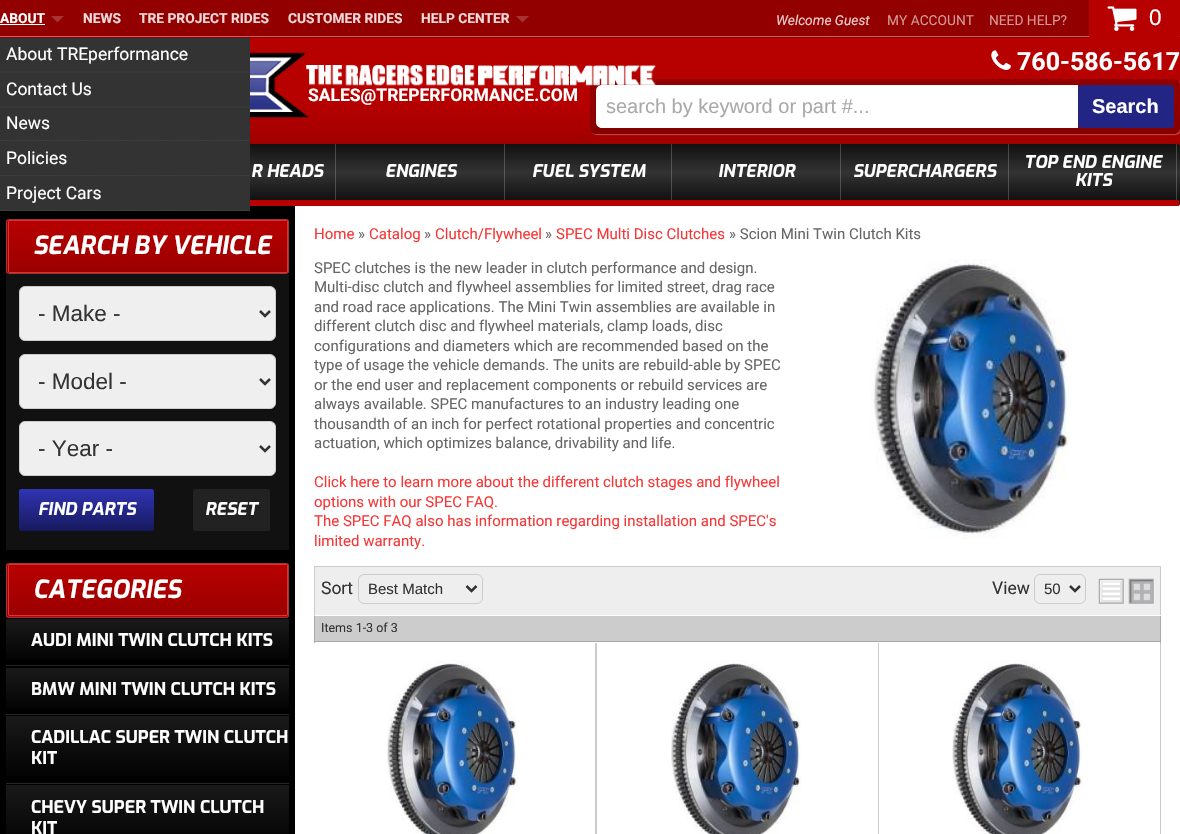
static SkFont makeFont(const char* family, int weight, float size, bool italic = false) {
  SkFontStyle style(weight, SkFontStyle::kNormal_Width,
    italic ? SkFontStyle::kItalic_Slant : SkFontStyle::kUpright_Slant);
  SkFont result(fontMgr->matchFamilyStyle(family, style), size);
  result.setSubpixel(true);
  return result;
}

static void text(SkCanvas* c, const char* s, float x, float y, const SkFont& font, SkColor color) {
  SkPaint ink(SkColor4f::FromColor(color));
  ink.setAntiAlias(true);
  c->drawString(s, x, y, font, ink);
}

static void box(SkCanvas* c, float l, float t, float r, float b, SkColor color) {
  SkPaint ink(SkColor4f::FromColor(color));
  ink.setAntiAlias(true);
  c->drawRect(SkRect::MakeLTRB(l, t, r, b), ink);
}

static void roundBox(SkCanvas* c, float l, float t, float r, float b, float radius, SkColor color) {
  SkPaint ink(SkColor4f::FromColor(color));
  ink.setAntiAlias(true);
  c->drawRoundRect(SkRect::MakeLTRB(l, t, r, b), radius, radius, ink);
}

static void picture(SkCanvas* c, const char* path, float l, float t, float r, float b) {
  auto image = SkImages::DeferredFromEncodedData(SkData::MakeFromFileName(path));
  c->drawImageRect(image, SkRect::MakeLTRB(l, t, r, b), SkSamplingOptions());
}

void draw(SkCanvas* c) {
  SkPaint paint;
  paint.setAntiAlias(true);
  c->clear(0xffffffff);
  box(c, 250, 38, 1180, 100, 0xffb70000);
  box(c, 0, 0, 1180, 38, 0xff920000);
  box(c, 0, 36, 1180, 37, 0xffbe6666);
  SkFont face1 = makeFont("Roboto", 700, 13.75f);
  text(c, "ABOUT", 0, 23, face1, 0xffffffff);
  box(c, 0, 24, 45, 25, 0xffffffff);
  paint.setColor(0xffa83333);
  c->drawPath(SkPathBuilder().moveTo(51, 16).lineTo(64, 16).lineTo(57.5f, 22.5f).close().detach(), paint);
  {
    const SkColor colors[] = {0xffb70000, 0xff9b0000};
    const float stops[] = {0, 1};
    const SkPoint ends[] = {{590, 100}, {590, 156}};
    paint.setShader(SkGradientShader::MakeLinear(ends, colors, stops, 2, SkTileMode::kClamp));
    paint.setAlpha(255);
  }
  c->drawRect(SkRect::MakeLTRB(250, 100, 1180, 147), paint);
  {
    const SkColor colors[] = {0xff111111, 0xff333333, 0xff111111};
    const float stops[] = {0, 0.51f, 1};
    const SkPoint ends[] = {{590, 144}, {590, 200}};
    paint.setShader(SkGradientShader::MakeLinear(ends, colors, stops, 3, SkTileMode::kClamp));
    paint.setAlpha(255);
  }
  c->drawPath(SkPathBuilder().moveTo(2.5f, 144).lineTo(1177.5f, 144).cubicTo(1179, 144, 1180, 145, 1180, 146.5f).lineTo(1180, 200).lineTo(0, 200).lineTo(0, 146.5f).cubicTo(0, 145, 1, 144, 2.5f, 144).close().detach(), paint);
  {
    const SkColor colors[] = {0xff111111, 0xff333333, 0xff111111};
    const float stops[] = {0, 0.51f, 1};
    const SkPoint ends[] = {{590, 200}, {590, 256}};
    paint.setShader(SkGradientShader::MakeLinear(ends, colors, stops, 3, SkTileMode::kClamp));
    paint.setAlpha(255);
  }
  c->drawPath(SkPathBuilder().moveTo(0, 200).lineTo(1180, 200).lineTo(1180, 203.5f).cubicTo(1180, 205, 1179, 206, 1177.5f, 206).lineTo(2.5f, 206).cubicTo(1, 206, 0, 205, 0, 203.5f).close().detach(), paint);
  box(c, 0, 206, 295, 834, 0xff000000);
  box(c, 0, 38, 250, 211, 0xff333333);
  paint.setStyle(SkPaint::kStroke_Style);
  paint.setStrokeWidth(1.2f);
  paint.setShader(nullptr);
  paint.setColor(0xff444444);
  paint.setPathEffect(SkDashPathEffect::Make({{1.25f, 1.25f}}, 0));
  c->drawPath(SkPathBuilder().moveTo(0, 72).lineTo(250, 72).detach(), paint);
  paint.setPathEffect(nullptr);
  SkFont face2 = makeFont("Roboto", 400, 17.5f);
  text(c, "About TREperformance", 6, 60, face2, 0xffffffff);
  paint.setPathEffect(SkDashPathEffect::Make({{1.25f, 1.25f}}, 0));
  c->drawPath(SkPathBuilder().moveTo(0, 107).lineTo(250, 107).detach(), paint);
  paint.setPathEffect(nullptr);
  text(c, "Contact Us", 6, 95, face2, 0xffffffff);
  paint.setPathEffect(SkDashPathEffect::Make({{1.25f, 1.25f}}, 0));
  c->drawPath(SkPathBuilder().moveTo(0, 140.5f).lineTo(250, 140.5f).detach(), paint);
  paint.setPathEffect(nullptr);
  text(c, "News", 6, 129, face2, 0xffffffff);
  paint.setPathEffect(SkDashPathEffect::Make({{1.25f, 1.25f}}, 0));
  c->drawPath(SkPathBuilder().moveTo(0, 175.5f).lineTo(250, 175.5f).detach(), paint);
  paint.setPathEffect(nullptr);
  text(c, "Policies", 6, 164, face2, 0xffffffff);
  paint.setPathEffect(SkDashPathEffect::Make({{1.25f, 1.25f}}, 0));
  c->drawPath(SkPathBuilder().moveTo(0, 210.5f).lineTo(250, 210.5f).detach(), paint);
  paint.setPathEffect(nullptr);
  text(c, "Project Cars", 6, 199, face2, 0xffffffff);
  text(c, "NEWS", 83, 23, face1, 0xffefd9d9);
  text(c, "TRE PROJECT RIDES", 139, 23, face1, 0xffefd9d9);
  text(c, "CUSTOMER RIDES", 288, 23, face1, 0xffefd9d9);
  text(c, "HELP CENTER", 421, 23, face1, 0xffefd9d9);
  paint.setStyle(SkPaint::kFill_Style);
  paint.setColor(0xffa83333);
  c->drawPath(SkPathBuilder().moveTo(516, 16).lineTo(529, 16).lineTo(522.5f, 22.5f).close().detach(), paint);
  SkFont face3 = makeFont("Roboto", 400, 13.75f, true);
  text(c, "Welcome Guest", 776, 25, face3, 0xffe9cccc);
  SkFont face4 = makeFont("Roboto", 400, 13.75f);
  text(c, "MY ACCOUNT", 887, 25, face4, 0xffd39999);
  text(c, "NEED HELP?", 989, 25, face4, 0xffd39999);
  paint.setColor(0xffb70000);
  c->drawPath(SkPathBuilder().moveTo(1089, -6).lineTo(1180, -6).lineTo(1180, 35).cubicTo(1180, 38.5f, 1177.5f, 41, 1174, 41).lineTo(1095, 41).cubicTo(1091.5f, 41, 1089, 38.5f, 1089, 35).close().detach(), paint);
  picture(c, "img_01.png", 1107, 6, 1137, 31);
  SkFont face5 = makeFont("Liberation Sans", 400, 22.5f);
  text(c, "0", 1149, 25, face5, 0xffffffff);
  picture(c, "img_02.png", 250, 52, 309, 118);
  c->save();
  c->clipPath(SkPathBuilder(SkPathFillType::kEvenOdd).moveTo(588, 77).lineTo(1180, 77).lineTo(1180, 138).lineTo(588, 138).close().moveTo(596, 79).lineTo(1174, 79).cubicTo(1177.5f, 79, 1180, 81.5f, 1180, 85).lineTo(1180, 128).cubicTo(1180, 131.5f, 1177.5f, 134, 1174, 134).lineTo(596, 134).cubicTo(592.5f, 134, 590, 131.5f, 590, 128).lineTo(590, 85).cubicTo(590, 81.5f, 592.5f, 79, 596, 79).close().detach(), true);
  paint.setColor(0x4dffffff);
  paint.setMaskFilter(SkMaskFilter::MakeBlur(kNormal_SkBlurStyle, 0.5f));
  c->drawRoundRect(SkRect::MakeLTRB(591, 80, 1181, 135), 6, 6, paint);
  paint.setMaskFilter(nullptr);
  c->restore();
  roundBox(c, 590, 79, 1180, 134, 6, 0x33000000);
  roundBox(c, 1078, 85, 1174, 128, 4, 0xff222583);
  paint.setColor(0x0a000000);
  c->drawPath(SkPathBuilder().moveTo(595, 85).lineTo(595, 130).lineTo(1079, 130).lineTo(1079, 85).lineTo(1078, 85).lineTo(1078, 128).lineTo(596, 128).lineTo(596, 85).close().detach(), paint);
  paint.setColor(0xffffffff);
  c->drawPath(SkPathBuilder().moveTo(602, 85).lineTo(1078, 85).lineTo(1078, 128).lineTo(602, 128).cubicTo(598.5f, 128, 596, 125.5f, 596, 122).lineTo(596, 91).cubicTo(596, 87.5f, 598.5f, 85, 602, 85).close().detach(), paint);
  picture(c, "img_03.png", 306, 65, 656, 86);
  picture(c, "img_04.png", 991, 50, 1011, 70);
  SkFont face6 = makeFont("Roboto", 700, 25);
  text(c, "760-586-5617", 1017, 70, face6, 0xffffffff);
  SkFont face7 = makeFont("Roboto", 700, 17.5f);
  text(c, "SALES@TREPERFORMANCE.COM", 308, 101, face7, 0xffffffff);
  SkFont face8 = makeFont("Liberation Sans", 400, 20);
  text(c, "search by keyword or part #...", 606, 113, face8, 0xffaaaaaa);
  SkFont face9 = makeFont("Liberation Sans", 700, 20);
  text(c, "Search", 1092, 113, face9, 0xffffffff);
  box(c, 250, 200, 1179, 206, 0xffb70000);
  box(c, 335, 144, 336, 200, 0x33ffffff);
  SkFont face10 = makeFont("Exo", 700, 17.5f, true);
  text(c, "R HEADS", 251, 177, face10, 0xffffffff);
  box(c, 504, 144, 505, 200, 0x33ffffff);
  text(c, "ENGINES", 385, 177, face10, 0xffffffff);
  box(c, 671, 144, 672, 200, 0x33ffffff);
  text(c, "FUEL SYSTEM", 532, 177, face10, 0xffffffff);
  box(c, 840, 144, 841, 200, 0x33ffffff);
  text(c, "INTERIOR", 718, 177, face10, 0xffffffff);
  box(c, 1008, 144, 1009, 200, 0x33ffffff);
  text(c, "SUPERCHARGERS", 853, 177, face10, 0xffffffff);
  box(c, 1176, 144, 1177, 200, 0x33ffffff);
  text(c, "TOP END ENGINE", 1024, 168, face10, 0xffffffff);
  text(c, "KITS", 1075, 186, face10, 0xffffffff);
  c->save();
  c->clipPath(SkPathBuilder().moveTo(8.5f, 219).lineTo(286.5f, 219).cubicTo(288, 219, 289, 220, 289, 221.5f).lineTo(289, 271.5f).cubicTo(289, 273, 288, 274, 286.5f, 274).lineTo(8.5f, 274).cubicTo(7, 274, 6, 273, 6, 271.5f).lineTo(6, 221.5f).cubicTo(6, 220, 7, 219, 8.5f, 219).close().detach(), true);
  {
    const SkColor colors[] = {0xffb70000, 0xff9b0000};
    const float stops[] = {0, 1};
    const SkPoint ends[] = {{148, 220}, {148, 273}};
    paint.setShader(SkGradientShader::MakeLinear(ends, colors, stops, 2, SkTileMode::kClamp));
    paint.setAlpha(255);
  }
  c->drawRect(SkRect::MakeLTRB(6, 220, 289, 273), paint);
  c->restore();
  paint.setStyle(SkPaint::kStroke_Style);
  paint.setStrokeWidth(1);
  paint.setShader(nullptr);
  paint.setColor(0xffdb3232);
  c->drawRoundRect(SkRect::MakeLTRB(8.5f, 220.5f, 287.5f, 272.5f), 0.5f, 0.5f, paint);
  paint.setColor(0xffa03638);
  c->drawRoundRect(SkRect::MakeLTRB(6.5f, 219.5f, 288.5f, 273.5f), 2, 2, paint);
  SkFont face11 = makeFont("Exo", 700, 25, true);
  text(c, "SEARCH BY VEHICLE", 33, 254, face11, 0xffffffff);
  box(c, 6, 274, 289, 550, 0xff111111);
  paint.setStyle(SkPaint::kFill_Style);
  paint.setColor(0xffefefef);
  c->drawRoundRect(SkRect::MakeLTRB(19.5f, 286.5f, 275.5f, 340.5f), 5.5f, 5.5f, paint);
  paint.setStyle(SkPaint::kStroke_Style);
  paint.setColor(0xffcccccc);
  c->drawRoundRect(SkRect::MakeLTRB(19.5f, 286.5f, 275.5f, 340.5f), 5.5f, 5.5f, paint);
  paint.setStrokeWidth(2.5f);
  paint.setColor(0xff333333);
  c->drawPath(SkPathBuilder().moveTo(260, 311).lineTo(265, 316).lineTo(270, 311).detach(), paint);
  text(c, "- Make -", 38, 321, face5, 0xff333333);
  paint.setStyle(SkPaint::kFill_Style);
  paint.setColor(0xffefefef);
  c->drawRoundRect(SkRect::MakeLTRB(19.5f, 354.5f, 275.5f, 408.5f), 5.5f, 5.5f, paint);
  paint.setStyle(SkPaint::kStroke_Style);
  paint.setStrokeWidth(1);
  paint.setColor(0xffcccccc);
  c->drawRoundRect(SkRect::MakeLTRB(19.5f, 354.5f, 275.5f, 408.5f), 5.5f, 5.5f, paint);
  paint.setStrokeWidth(2.5f);
  paint.setColor(0xff333333);
  c->drawPath(SkPathBuilder().moveTo(260, 379).lineTo(265, 384).lineTo(270, 379).detach(), paint);
  text(c, "- Model -", 38, 389, face5, 0xff333333);
  paint.setStyle(SkPaint::kFill_Style);
  paint.setColor(0xffefefef);
  c->drawRoundRect(SkRect::MakeLTRB(19.5f, 421.5f, 275.5f, 475.5f), 5.5f, 5.5f, paint);
  paint.setStyle(SkPaint::kStroke_Style);
  paint.setStrokeWidth(1);
  paint.setColor(0xffcccccc);
  c->drawRoundRect(SkRect::MakeLTRB(19.5f, 421.5f, 275.5f, 475.5f), 5.5f, 5.5f, paint);
  paint.setStrokeWidth(2.5f);
  paint.setColor(0xff333333);
  c->drawPath(SkPathBuilder().moveTo(260, 446).lineTo(265, 451).lineTo(270, 446).detach(), paint);
  text(c, "- Year -", 38, 456, face5, 0xff333333);
  paint.setStyle(SkPaint::kFill_Style);
  {
    const SkColor colors[] = {0xff3035b3, 0xff17195e};
    const float stops[] = {0, 1};
    const SkPoint ends[] = {{86, 489}, {86, 531}};
    paint.setShader(SkGradientShader::MakeLinear(ends, colors, stops, 2, SkTileMode::kClamp));
    paint.setAlpha(255);
  }
  c->drawRoundRect(SkRect::MakeLTRB(19, 489, 154, 531), 2.5f, 2.5f, paint);
  text(c, "FIND PARTS", 38, 515, face10, 0xffffffff);
  roundBox(c, 193, 489, 270, 531, 2.5f, 0xff222222);
  text(c, "RESET", 205, 515, face10, 0xffffffff);
  {
    const SkColor colors[] = {0xffb70000, 0xff9b0000};
    const float stops[] = {0, 1};
    const SkPoint ends[] = {{148, 564}, {148, 616}};
    paint.setShader(SkGradientShader::MakeLinear(ends, colors, stops, 2, SkTileMode::kClamp));
    paint.setAlpha(255);
  }
  c->drawRect(SkRect::MakeLTRB(6, 564, 289, 616), paint);
  c->save();
  c->clipPath(SkPathBuilder().moveTo(8.5f, 563).lineTo(286.5f, 563).cubicTo(288, 563, 289, 564, 289, 565.5f).lineTo(289, 615.5f).cubicTo(289, 617, 288, 618, 286.5f, 618).lineTo(8.5f, 618).cubicTo(7, 618, 6, 617, 6, 615.5f).lineTo(6, 565.5f).cubicTo(6, 564, 7, 563, 8.5f, 563).close().detach(), true);
  {
    const SkColor colors[] = {0xffb70000, 0xff9b0000};
    const float stops[] = {0, 1};
    const SkPoint ends[] = {{148, 616}, {148, 669}};
    paint.setShader(SkGradientShader::MakeLinear(ends, colors, stops, 2, SkTileMode::kClamp));
    paint.setAlpha(255);
  }
  c->drawRect(SkRect::MakeLTRB(6, 616, 289, 618), paint);
  c->restore();
  paint.setStyle(SkPaint::kStroke_Style);
  paint.setStrokeWidth(1);
  paint.setShader(nullptr);
  paint.setColor(0xffdb3232);
  c->drawRoundRect(SkRect::MakeLTRB(8.5f, 564.5f, 287.5f, 615.5f), 0.5f, 0.5f, paint);
  paint.setColor(0xffa03638);
  c->drawRoundRect(SkRect::MakeLTRB(6.5f, 563.5f, 288.5f, 617.5f), 2, 2, paint);
  text(c, "CATEGORIES", 33, 598, face11, 0xffffffff);
  paint.setStyle(SkPaint::kFill_Style);
  {
    const SkColor colors[] = {0xff1a1a1a, 0xff000000};
    const float stops[] = {0, 0.99f};
    const SkPoint ends[] = {{148, 619}, {148, 665}};
    paint.setShader(SkGradientShader::MakeLinear(ends, colors, stops, 2, SkTileMode::kClamp));
    paint.setAlpha(255);
  }
  c->drawRect(SkRect::MakeLTRB(6, 619, 289, 660), paint);
  box(c, 6, 665, 289, 666, 0xff262626);
  SkFont face12 = makeFont("Exo", 700, 17.5f);
  text(c, "AUDI MINI TWIN CLUTCH KITS", 31, 646, face12, 0xffffffff);
  {
    const SkColor colors[] = {0xff1a1a1a, 0xff000000};
    const float stops[] = {0, 0.99f};
    const SkPoint ends[] = {{148, 668}, {148, 714}};
    paint.setShader(SkGradientShader::MakeLinear(ends, colors, stops, 2, SkTileMode::kClamp));
    paint.setAlpha(255);
  }
  c->drawRect(SkRect::MakeLTRB(6, 668, 289, 709), paint);
  box(c, 6, 714, 289, 715, 0xff262626);
  text(c, "BMW MINI TWIN CLUTCH KITS", 31, 695, face12, 0xffffffff);
  {
    const SkColor colors[] = {0xff1a1a1a, 0xff000000};
    const float stops[] = {0, 0.99f};
    const SkPoint ends[] = {{148, 716}, {148, 783}};
    paint.setShader(SkGradientShader::MakeLinear(ends, colors, stops, 2, SkTileMode::kClamp));
    paint.setAlpha(255);
  }
  c->drawRect(SkRect::MakeLTRB(6, 716, 289, 776), paint);
  box(c, 6, 783, 289, 784, 0xff262626);
  text(c, "CADILLAC SUPER TWIN CLUTCH", 31, 743, face12, 0xffffffff);
  text(c, "KIT", 31, 764, face12, 0xffffffff);
  {
    const SkColor colors[] = {0xff1a1a1a, 0xff000000};
    const float stops[] = {0, 0.99f};
    const SkPoint ends[] = {{148, 785}, {148, 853}};
    paint.setShader(SkGradientShader::MakeLinear(ends, colors, stops, 2, SkTileMode::kClamp));
    paint.setAlpha(255);
  }
  c->drawRect(SkRect::MakeLTRB(6, 785, 289, 834), paint);
  text(c, "CHEVY SUPER TWIN CLUTCH", 31, 813, face12, 0xffffffff);
  text(c, "KIT", 31, 834, face12, 0xffffffff);
  SkFont face13 = makeFont("Roboto", 400, 15);
  text(c, "Home", 314, 239, face13, 0xfff93636);
  text(c, "»", 358, 239, face13, 0xff666666);
  text(c, "Catalog", 369, 239, face13, 0xfff93636);
  text(c, "»", 424, 239, face13, 0xff666666);
  text(c, "Clutch/Flywheel", 435, 239, face13, 0xfff93636);
  text(c, "»", 545, 239, face13, 0xff666666);
  text(c, "SPEC Multi Disc Clutches", 556, 239, face13, 0xfff93636);
  text(c, "» Scion Mini Twin Clutch Kits", 729, 239, face13, 0xff666666);
  text(c, "SPEC clutches is the new leader in clutch performance and design.", 314, 273, face13, 0xff666666);
  text(c, "Multi-disc clutch and flywheel assemblies for limited street, drag race", 314, 292, face13, 0xff666666);
  text(c, "and road race applications. The Mini Twin assemblies are available in", 314, 312, face13, 0xff666666);
  text(c, "different clutch disc and flywheel materials, clamp loads, disc", 314, 331, face13, 0xff666666);
  text(c, "configurations and diameters which are recommended based on the", 314, 351, face13, 0xff666666);
  text(c, "type of usage the vehicle demands. The units are rebuild-able by SPEC", 314, 370, face13, 0xff666666);
  text(c, "or the end user and replacement components or rebuild services are", 314, 390, face13, 0xff666666);
  text(c, "always available. SPEC manufactures to an industry leading one", 314, 409, face13, 0xff666666);
  text(c, "thousandth of an inch for perfect rotational properties and concentric", 314, 429, face13, 0xff666666);
  text(c, "actuation, which optimizes balance, drivability and life.", 314, 448, face13, 0xff666666);
  text(c, "Click here to learn more about the different clutch stages and flywheel", 314, 487, face13, 0xfff93636);
  text(c, "options with our SPEC FAQ.", 314, 507, face13, 0xfff93636);
  text(c, "The SPEC FAQ also has information regarding installation and SPEC's", 314, 526, face13, 0xfff93636);
  text(c, "limited warranty.", 314, 546, face13, 0xfff93636);
  picture(c, "img_05.png", 869, 259, 1069, 539);
  box(c, 315, 567, 1160, 615, 0xffeeeeee);
  box(c, 314, 566, 1161, 567, 0xffcccccc);
  box(c, 1160, 566, 1161, 616, 0xffcccccc);
  box(c, 1160, 615, 1161, 616, 0xffffffff);
  box(c, 314, 566, 315, 616, 0xffcccccc);
  text(c, "Sort", 321, 594, face2, 0xff333333);
  paint.setStyle(SkPaint::kStroke_Style);
  paint.setShader(nullptr);
  paint.setColor(0xffcccccc);
  c->drawRoundRect(SkRect::MakeLTRB(358.5f, 574.5f, 482.5f, 603.5f), 5.5f, 5.5f, paint);
  paint.setStrokeWidth(2.5f);
  paint.setColor(0xff333333);
  c->drawPath(SkPathBuilder().moveTo(466.5f, 586).lineTo(471.5f, 591).lineTo(476.5f, 586).detach(), paint);
  SkFont face14 = makeFont("Liberation Sans", 400, 15);
  text(c, "Best Match", 368, 594, face14, 0xff333333);
  text(c, "View", 992, 594, face2, 0xff333333);
  paint.setStrokeWidth(1);
  paint.setColor(0xffcccccc);
  c->drawRoundRect(SkRect::MakeLTRB(1034.5f, 574.5f, 1085.5f, 603.5f), 5.5f, 5.5f, paint);
  paint.setStrokeWidth(2.5f);
  paint.setColor(0xff333333);
  c->drawPath(SkPathBuilder().moveTo(1070, 586).lineTo(1075, 591).lineTo(1080, 586).detach(), paint);
  text(c, "50", 1044, 594, face14, 0xff333333);
  picture(c, "img_06.png", 1098, 578, 1154, 604);
  box(c, 315, 616, 1160, 641, 0xffcccccc);
  box(c, 1160, 616, 1161, 643, 0xffaaaaaa);
  box(c, 314, 641, 1161, 642, 0xffaaaaaa);
  box(c, 314, 616, 315, 643, 0xffaaaaaa);
  SkFont face15 = makeFont("Roboto", 400, 12.5f);
  text(c, "Items 1-3 of 3", 321, 632, face15, 0xff333333);
  box(c, 595, 643, 597, 834, 0xffcccccc);
  picture(c, "img_07.png", 387, 660, 518, 834);
  box(c, 878, 643, 879, 834, 0xffcccccc);
  picture(c, "img_08.png", 671, 660, 801, 834);
  box(c, 1160, 643, 1161, 834, 0xffcccccc);
  picture(c, "img_09.png", 952, 660, 1083, 834);
}
